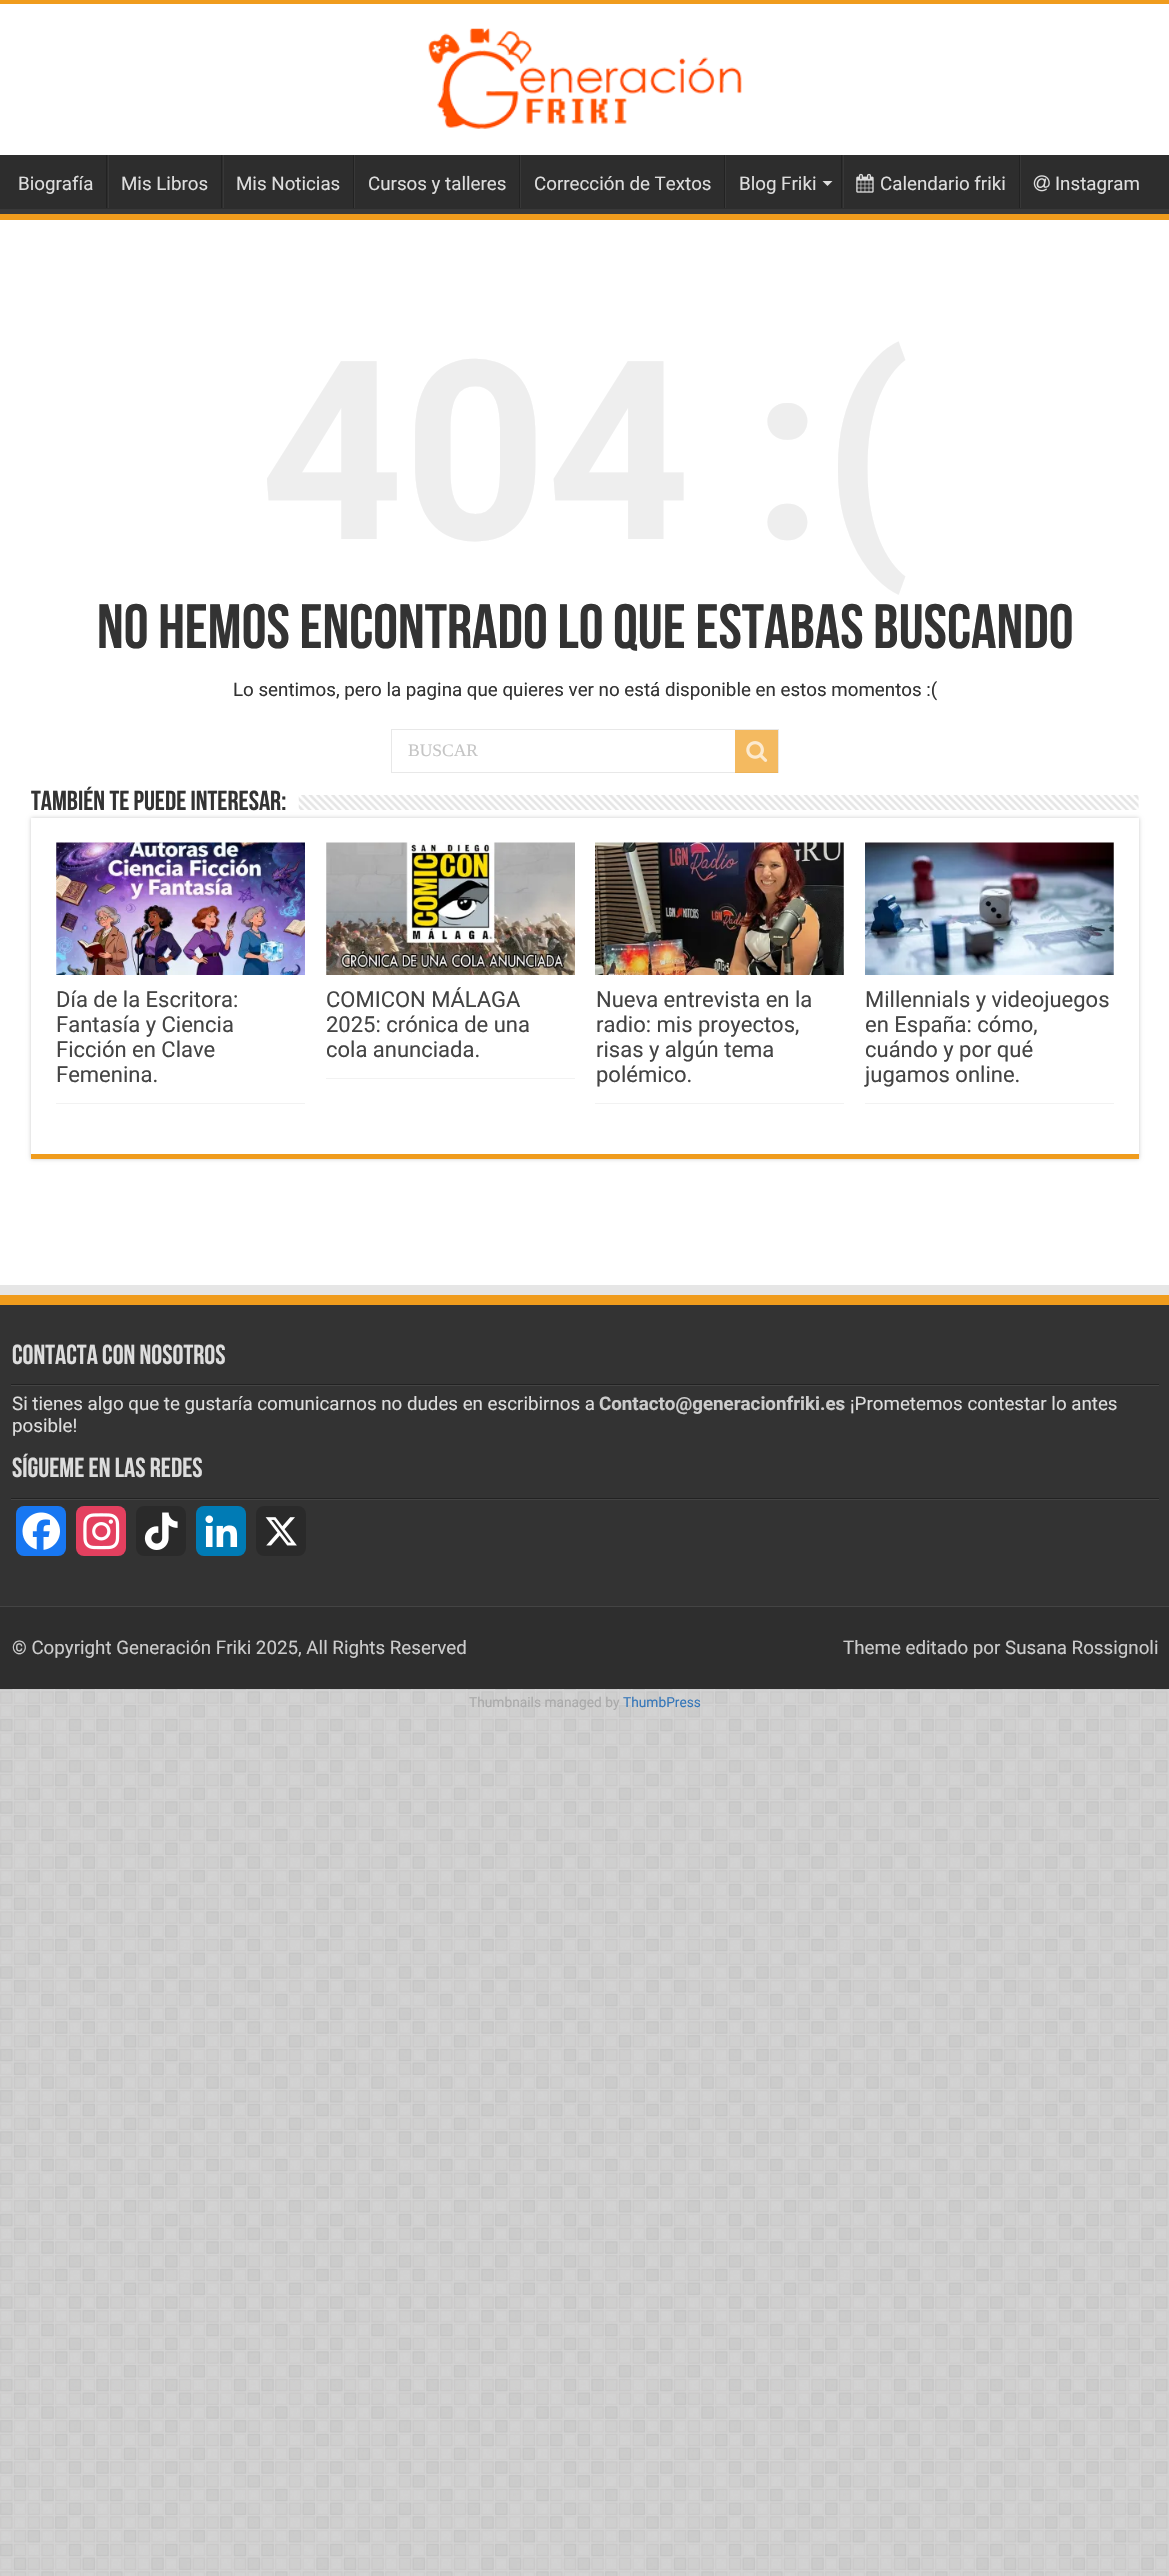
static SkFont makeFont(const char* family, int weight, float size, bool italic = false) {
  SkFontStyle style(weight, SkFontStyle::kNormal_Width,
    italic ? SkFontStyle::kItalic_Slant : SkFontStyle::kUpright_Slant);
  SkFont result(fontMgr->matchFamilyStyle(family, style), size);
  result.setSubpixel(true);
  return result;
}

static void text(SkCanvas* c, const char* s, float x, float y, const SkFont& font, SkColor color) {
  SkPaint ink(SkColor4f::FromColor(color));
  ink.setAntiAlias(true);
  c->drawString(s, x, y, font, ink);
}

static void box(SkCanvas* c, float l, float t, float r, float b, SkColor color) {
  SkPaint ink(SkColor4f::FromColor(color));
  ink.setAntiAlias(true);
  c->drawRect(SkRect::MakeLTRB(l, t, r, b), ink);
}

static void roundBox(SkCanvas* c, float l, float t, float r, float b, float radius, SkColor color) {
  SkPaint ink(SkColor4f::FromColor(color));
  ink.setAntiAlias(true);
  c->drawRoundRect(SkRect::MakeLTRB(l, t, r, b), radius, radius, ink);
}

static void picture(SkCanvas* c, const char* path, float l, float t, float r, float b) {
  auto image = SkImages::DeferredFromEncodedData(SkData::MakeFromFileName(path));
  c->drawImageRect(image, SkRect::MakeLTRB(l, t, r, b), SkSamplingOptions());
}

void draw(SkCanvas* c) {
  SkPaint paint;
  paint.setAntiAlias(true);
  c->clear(0xffcccccc);
  picture(c, "img_01.png", 0, 1689, 1169, 2576);
  box(c, 0, 4, 1169, 1285, 0xffffffff);
  box(c, 0, 0, 1169, 4, 0xfff09c1d);
  picture(c, "img_02.png", 428, 28, 742, 129);
  box(c, 0, 155, 1169, 209, 0xff2d2d2d);
  c->save();
  c->clipRect(SkRect::MakeLTRB(0, 155, 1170, 214));
  paint.setColor(0xff393939);
  c->drawPath(SkPathBuilder(SkPathFillType::kEvenOdd).moveTo(-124, 31).lineTo(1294, 31).lineTo(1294, 338).lineTo(-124, 338).close().moveTo(-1, 148).lineTo(1169, 148).cubicTo(1169, 148, 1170, 148, 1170, 149).lineTo(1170, 208).cubicTo(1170, 208, 1169, 209, 1169, 209).lineTo(-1, 209).cubicTo(-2, 209, -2, 208, -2, 208).lineTo(-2, 149).cubicTo(-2, 148, -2, 148, -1, 148).close().detach(), paint);
  c->restore();
  box(c, 0, 214, 1169, 220, 0xfff09c1d);
  SkFont face1 = makeFont("Roboto", 400, 18.75f);
  text(c, "Biografía", 18, 190, face1, 0xffdddddd);
  box(c, 106, 155, 107, 208, 0xff222222);
  box(c, 108, 155, 109, 208, 0xff383838);
  text(c, "Mis Libros", 121, 190, face1, 0xffdddddd);
  box(c, 221, 155, 222, 208, 0xff222222);
  box(c, 223, 155, 224, 208, 0xff383838);
  text(c, "Mis Noticias", 236, 190, face1, 0xffdddddd);
  box(c, 353, 155, 354, 208, 0xff222222);
  box(c, 354, 155, 355, 208, 0xff383838);
  text(c, "Cursos y talleres", 368, 190, face1, 0xffdddddd);
  box(c, 519, 155, 520, 208, 0xff222222);
  box(c, 520, 155, 521, 208, 0xff383838);
  text(c, "Corrección de Textos", 534, 190, face1, 0xffdddddd);
  box(c, 724, 155, 725, 208, 0xff222222);
  box(c, 725, 155, 726, 208, 0xff383838);
  text(c, "Blog Friki", 739, 190, face1, 0xffdddddd);
  paint.setColor(0xffdddddd);
  c->drawPath(SkPathBuilder().moveTo(822.5f, 181).lineTo(832.5f, 181).lineTo(827.5f, 186).close().detach(), paint);
  box(c, 841, 155, 842, 208, 0xff222222);
  box(c, 843, 155, 844, 208, 0xff383838);
  picture(c, "img_03.png", 856, 173, 874, 193);
  text(c, "Calendario friki", 880, 190, face1, 0xffdddddd);
  box(c, 1019, 155, 1020, 208, 0xff222222);
  box(c, 1020, 155, 1021, 208, 0xff383838);
  picture(c, "img_04.png", 1033, 175, 1050, 192);
  text(c, "Instagram", 1055, 190, face1, 0xffdddddd);
  SkFont face2 = makeFont("Roboto", 700, 250);
  text(c, "404 :(", 260, 539, face2, 0xffeeeeee);
  SkFont face3 = makeFont("Bebas Neue", 700, 62.5f);
  text(c, "No hemos encontrado lo que estabas buscando", 97, 648, face3, 0xff333333);
  text(c, "Lo sentimos, pero la pagina que quieres ver no está disponible en estos momentos :(", 233, 696, face1, 0xff333333);
  paint.setStyle(SkPaint::kStroke_Style);
  paint.setStrokeWidth(1);
  paint.setColor(0xffe8e8e8);
  c->drawRect(SkRect::MakeLTRB(391.5f, 729.5f, 778.5f, 772.5f), paint);
  SkFont face4 = makeFont("Liberation Serif", 400, 17.5f);
  text(c, "BUSCAR", 408, 756, face4, 0xffc5c5c5);
  box(c, 735, 730, 778, 773, 0xb3f09c1d);
  picture(c, "img_05.png", 746, 741, 768, 762);
  SkFont face5 = makeFont("Bebas Neue", 700, 27.5f);
  text(c, "También te puede interesar:", 31, 810, face5, 0xff333333);
  picture(c, "img_06.png", 298, 795, 1139, 810);
  paint.setStyle(SkPaint::kFill_Style);
  paint.setColor(0xffcacaca);
  paint.setMaskFilter(SkMaskFilter::MakeBlur(kNormal_SkBlurStyle, 2));
  c->drawRect(SkRect::MakeLTRB(31, 818, 1139, 1159), paint);
  paint.setMaskFilter(nullptr);
  box(c, 31, 818, 1139, 1154, 0xffffffff);
  box(c, 31, 1154, 1139, 1159, 0xfff09c1d);
  picture(c, "img_07.png", 56, 842, 305, 975);
  SkFont face6 = makeFont("Roboto", 400, 22);
  text(c, "Día de la Escritora:", 56, 1007, face6, 0xff444444);
  text(c, "Fantasía y Ciencia", 56, 1032, face6, 0xff444444);
  text(c, "Ficción en Clave", 56, 1057, face6, 0xff444444);
  text(c, "Femenina.", 56, 1082, face6, 0xff444444);
  box(c, 56, 1103, 305, 1104, 0xfff2f2f2);
  picture(c, "img_08.png", 326, 842, 575, 975);
  text(c, "COMICON MÁLAGA", 326, 1007, face6, 0xff444444);
  text(c, "2025: crónica de una", 326, 1032, face6, 0xff444444);
  text(c, "cola anunciada.", 326, 1057, face6, 0xff444444);
  box(c, 326, 1078, 575, 1079, 0xfff2f2f2);
  picture(c, "img_09.png", 595, 842, 844, 975);
  text(c, "Nueva entrevista en la", 596, 1007, face6, 0xff444444);
  text(c, "radio: mis proyectos,", 596, 1032, face6, 0xff444444);
  text(c, "risas y algún tema", 596, 1057, face6, 0xff444444);
  text(c, "polémico.", 596, 1082, face6, 0xff444444);
  box(c, 595, 1103, 844, 1104, 0xfff2f2f2);
  picture(c, "img_10.png", 865, 842, 1114, 975);
  text(c, "Millennials y videojuegos", 865, 1007, face6, 0xff444444);
  text(c, "en España: cómo,", 865, 1032, face6, 0xff444444);
  text(c, "cuándo y por qué", 865, 1057, face6, 0xff444444);
  text(c, "jugamos online.", 865, 1082, face6, 0xff444444);
  box(c, 865, 1103, 1114, 1104, 0xfff2f2f2);
  box(c, 0, 1285, 1169, 1295, 0xffe6e6e6);
  box(c, 0, 1305, 1169, 1606, 0xff333333);
  box(c, 0, 1295, 1169, 1305, 0xfff09c1d);
  box(c, 11, 1384, 1159, 1385, 0xff222222);
  text(c, "Contacta con nosotros", 12, 1364, face5, 0xffdddddd);
  box(c, 11, 1385, 1159, 1386, 0xff444444);
  text(c, "Si tienes algo que te gustaría comunicarnos no dudes en escribirnos a", 12, 1410, face1, 0xffdddddd);
  SkFont face7 = makeFont("Roboto", 700, 18.75f);
  text(c, "Contacto@generacionfriki.es", 599, 1410, face7, 0xffcccccc);
  text(c, "¡Prometemos contestar lo antes", 850, 1410, face1, 0xffdddddd);
  text(c, "posible!", 12, 1432, face1, 0xffdddddd);
  box(c, 11, 1498, 1159, 1499, 0xff222222);
  text(c, "Sígueme en las redes", 12, 1477, face5, 0xffdddddd);
  box(c, 11, 1499, 1159, 1500, 0xff444444);
  roundBox(c, 16, 1506, 66, 1556, 8, 0xff1877f2);
  picture(c, "img_11.png", 22, 1512, 60, 1550);
  roundBox(c, 76, 1506, 126, 1556, 8, 0xffe4405f);
  picture(c, "img_12.png", 83, 1513, 120, 1550);
  roundBox(c, 136, 1506, 186, 1556, 8, 0xff2a2a2a);
  picture(c, "img_13.png", 144, 1512, 178, 1550);
  roundBox(c, 196, 1506, 246, 1556, 8, 0xff007bb5);
  picture(c, "img_14.png", 205, 1515, 238, 1547);
  roundBox(c, 256, 1506, 306, 1556, 8, 0xff2a2a2a);
  picture(c, "img_15.png", 265, 1517, 297, 1546);
  box(c, 0, 1607, 1169, 1689, 0xff2e2e2e);
  box(c, 0, 1606, 1169, 1607, 0xff444444);
  text(c, "© Copyright Generación Friki 2025, All Rights Reserved", 12, 1654, face1, 0xffcccccc);
  text(c, "Theme editado por Susana Rossignoli", 843, 1654, face1, 0xffcccccc);
  SkFont face8 = makeFont("Roboto", 400, 13.75f);
  text(c, "Thumbnails managed by", 469, 1707, face8, 0xffaaaaaa);
  text(c, "ThumbPress", 623, 1707, face8, 0xff3677b9);
}
